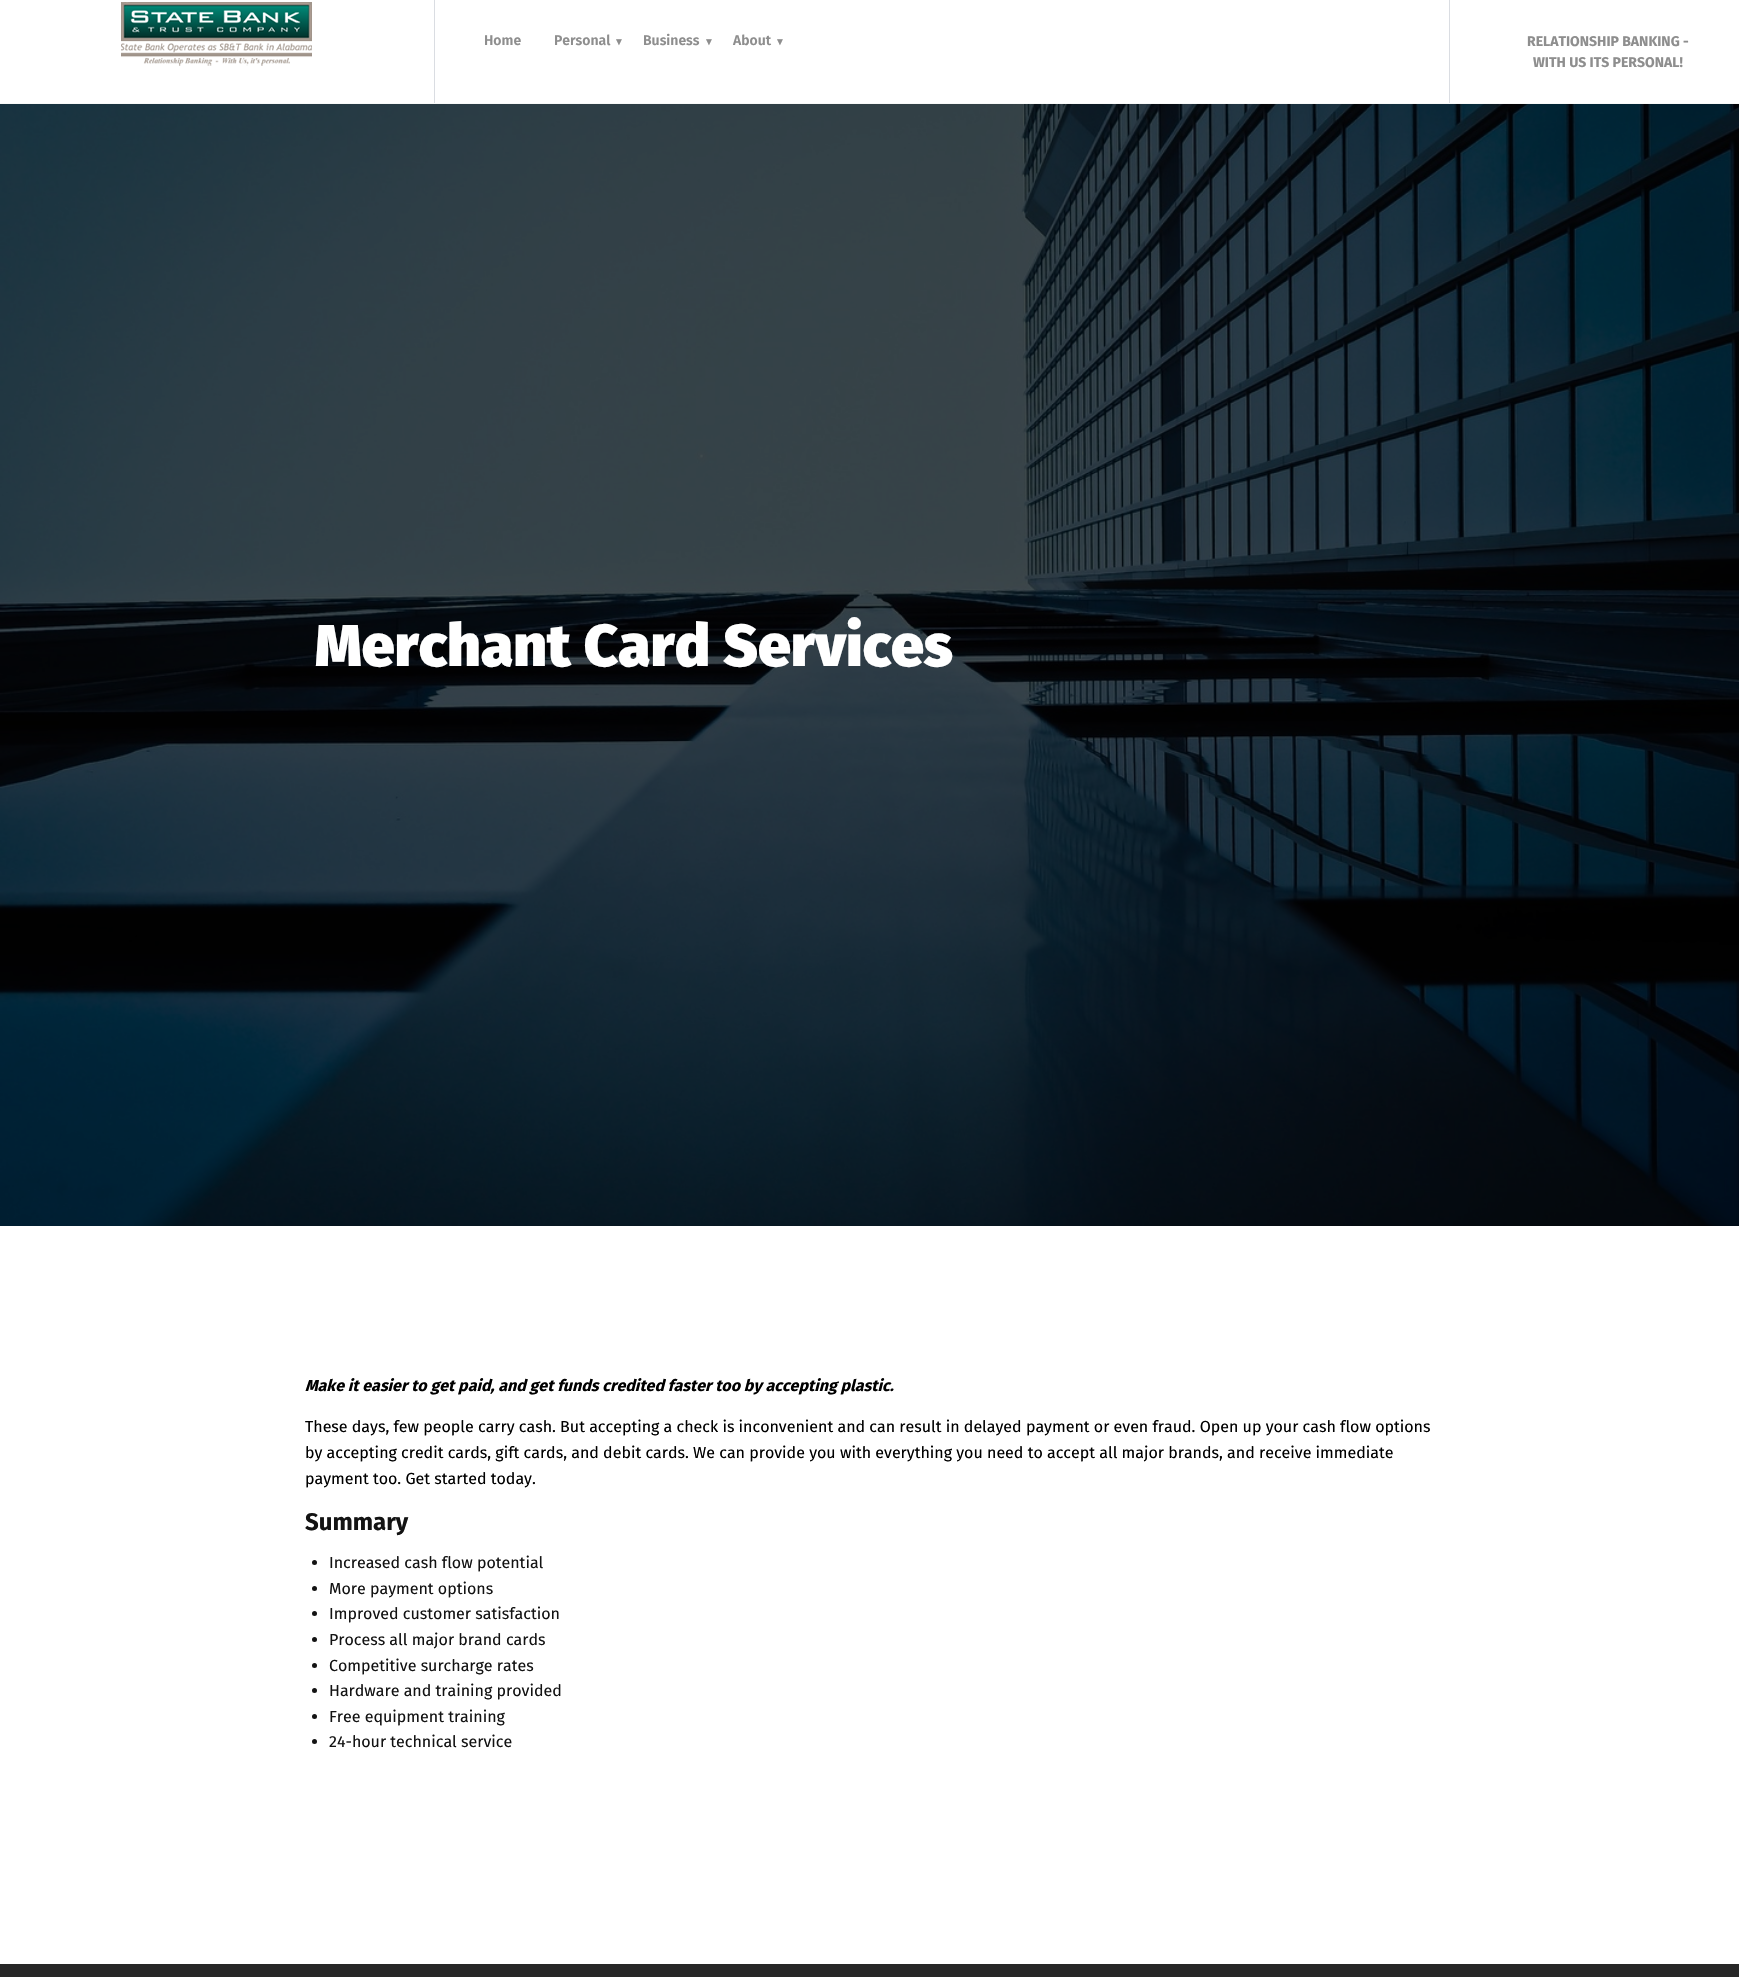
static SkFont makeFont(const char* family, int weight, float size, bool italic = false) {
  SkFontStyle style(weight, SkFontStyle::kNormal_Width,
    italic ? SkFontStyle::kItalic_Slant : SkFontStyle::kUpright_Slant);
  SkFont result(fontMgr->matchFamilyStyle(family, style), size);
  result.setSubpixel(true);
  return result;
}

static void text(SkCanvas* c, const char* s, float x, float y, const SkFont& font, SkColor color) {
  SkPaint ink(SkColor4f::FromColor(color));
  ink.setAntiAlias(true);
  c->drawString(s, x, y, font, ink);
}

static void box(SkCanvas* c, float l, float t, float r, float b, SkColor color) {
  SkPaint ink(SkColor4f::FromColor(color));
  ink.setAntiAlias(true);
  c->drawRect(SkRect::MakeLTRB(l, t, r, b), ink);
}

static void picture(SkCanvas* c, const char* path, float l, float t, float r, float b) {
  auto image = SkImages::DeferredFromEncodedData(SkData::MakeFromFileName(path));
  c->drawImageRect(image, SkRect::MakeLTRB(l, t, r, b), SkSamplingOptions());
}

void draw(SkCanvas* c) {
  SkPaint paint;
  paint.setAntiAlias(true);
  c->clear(0xffffffff);
  box(c, 0, 103, 1739, 104, 0xfff8f9f8);
  box(c, 434, 0, 435, 103, 0xffdadde2);
  picture(c, "img_01.png", 121, 2, 312, 66);
  SkFont face1 = makeFont("Fira Sans", 600, 14);
  text(c, "Home", 484, 45, face1, 0xff8e8e8e);
  text(c, "Personal", 554, 45, face1, 0xff8e8e8e);
  SkFont face2 = makeFont("Liberation Serif", 400, 10);
  text(c, "▼", 614, 45, face2, 0xff8e8e8e);
  text(c, "Business", 643, 45, face1, 0xff8e8e8e);
  text(c, "▼", 704, 45, face2, 0xff8e8e8e);
  text(c, "About", 733, 45, face1, 0xff8e8e8e);
  text(c, "▼", 775, 45, face2, 0xff8e8e8e);
  box(c, 1449, 0, 1450, 103, 0xffdadde2);
  SkFont face3 = makeFont("Fira Sans", 700, 14);
  text(c, "RELATIONSHIP BANKING -", 1527, 46, face3, 0xff8e8e8e);
  text(c, "WITH US ITS PERSONAL!", 1533, 67, face3, 0xff8e8e8e);
  picture(c, "img_02.png", 0, 104, 1739, 1226);
  SkFont face4 = makeFont("Fira Sans", 900, 59);
  text(c, "Merchant Card Services", 315, 666, face4, 0xffffffff);
  SkFont face5 = makeFont("Fira Sans", 700, 16, true);
  text(c, "Make it easier to get paid, and get funds credited faster too by accepting plastic.", 305, 1391, face5, 0xff000000);
  SkFont face6 = makeFont("Fira Sans", 400, 16);
  text(c, "These days, few people carry cash. But accepting a check is inconvenient and can result in delayed payment or even fraud. Open up your cash flow options", 305, 1432, face6, 0xff000000);
  text(c, "by accepting credit cards, gift cards, and debit cards. We can provide you with everything you need to accept all major brands, and receive immediate", 305, 1458, face6, 0xff000000);
  text(c, "payment too. Get started today.", 305, 1484, face6, 0xff000000);
  SkFont face7 = makeFont("Fira Sans", 700, 24);
  text(c, "Summary", 305, 1530, face7, 0xff131313);
  paint.setColor(0xff131313);
  c->drawCircle(314.5f, 1562.5f, 2.5f, paint);
  text(c, "Increased cash flow potential", 329, 1568, face6, 0xff131313);
  c->drawCircle(314.5f, 1588.5f, 2.5f, paint);
  text(c, "More payment options", 329, 1594, face6, 0xff131313);
  c->drawCircle(314.5f, 1613.5f, 2.5f, paint);
  text(c, "Improved customer satisfaction", 329, 1619, face6, 0xff131313);
  c->drawCircle(314.5f, 1639.5f, 2.5f, paint);
  text(c, "Process all major brand cards", 329, 1645, face6, 0xff131313);
  c->drawCircle(314.5f, 1665.5f, 2.5f, paint);
  text(c, "Competitive surcharge rates", 329, 1671, face6, 0xff131313);
  c->drawCircle(314.5f, 1690.5f, 2.5f, paint);
  text(c, "Hardware and training provided", 329, 1696, face6, 0xff131313);
  c->drawCircle(314.5f, 1716.5f, 2.5f, paint);
  text(c, "Free equipment training", 329, 1722, face6, 0xff131313);
  c->drawCircle(314.5f, 1741.5f, 2.5f, paint);
  text(c, "24-hour technical service", 329, 1747, face6, 0xff131313);
  box(c, 0, 1964, 1739, 1977, 0xff272727);
}
